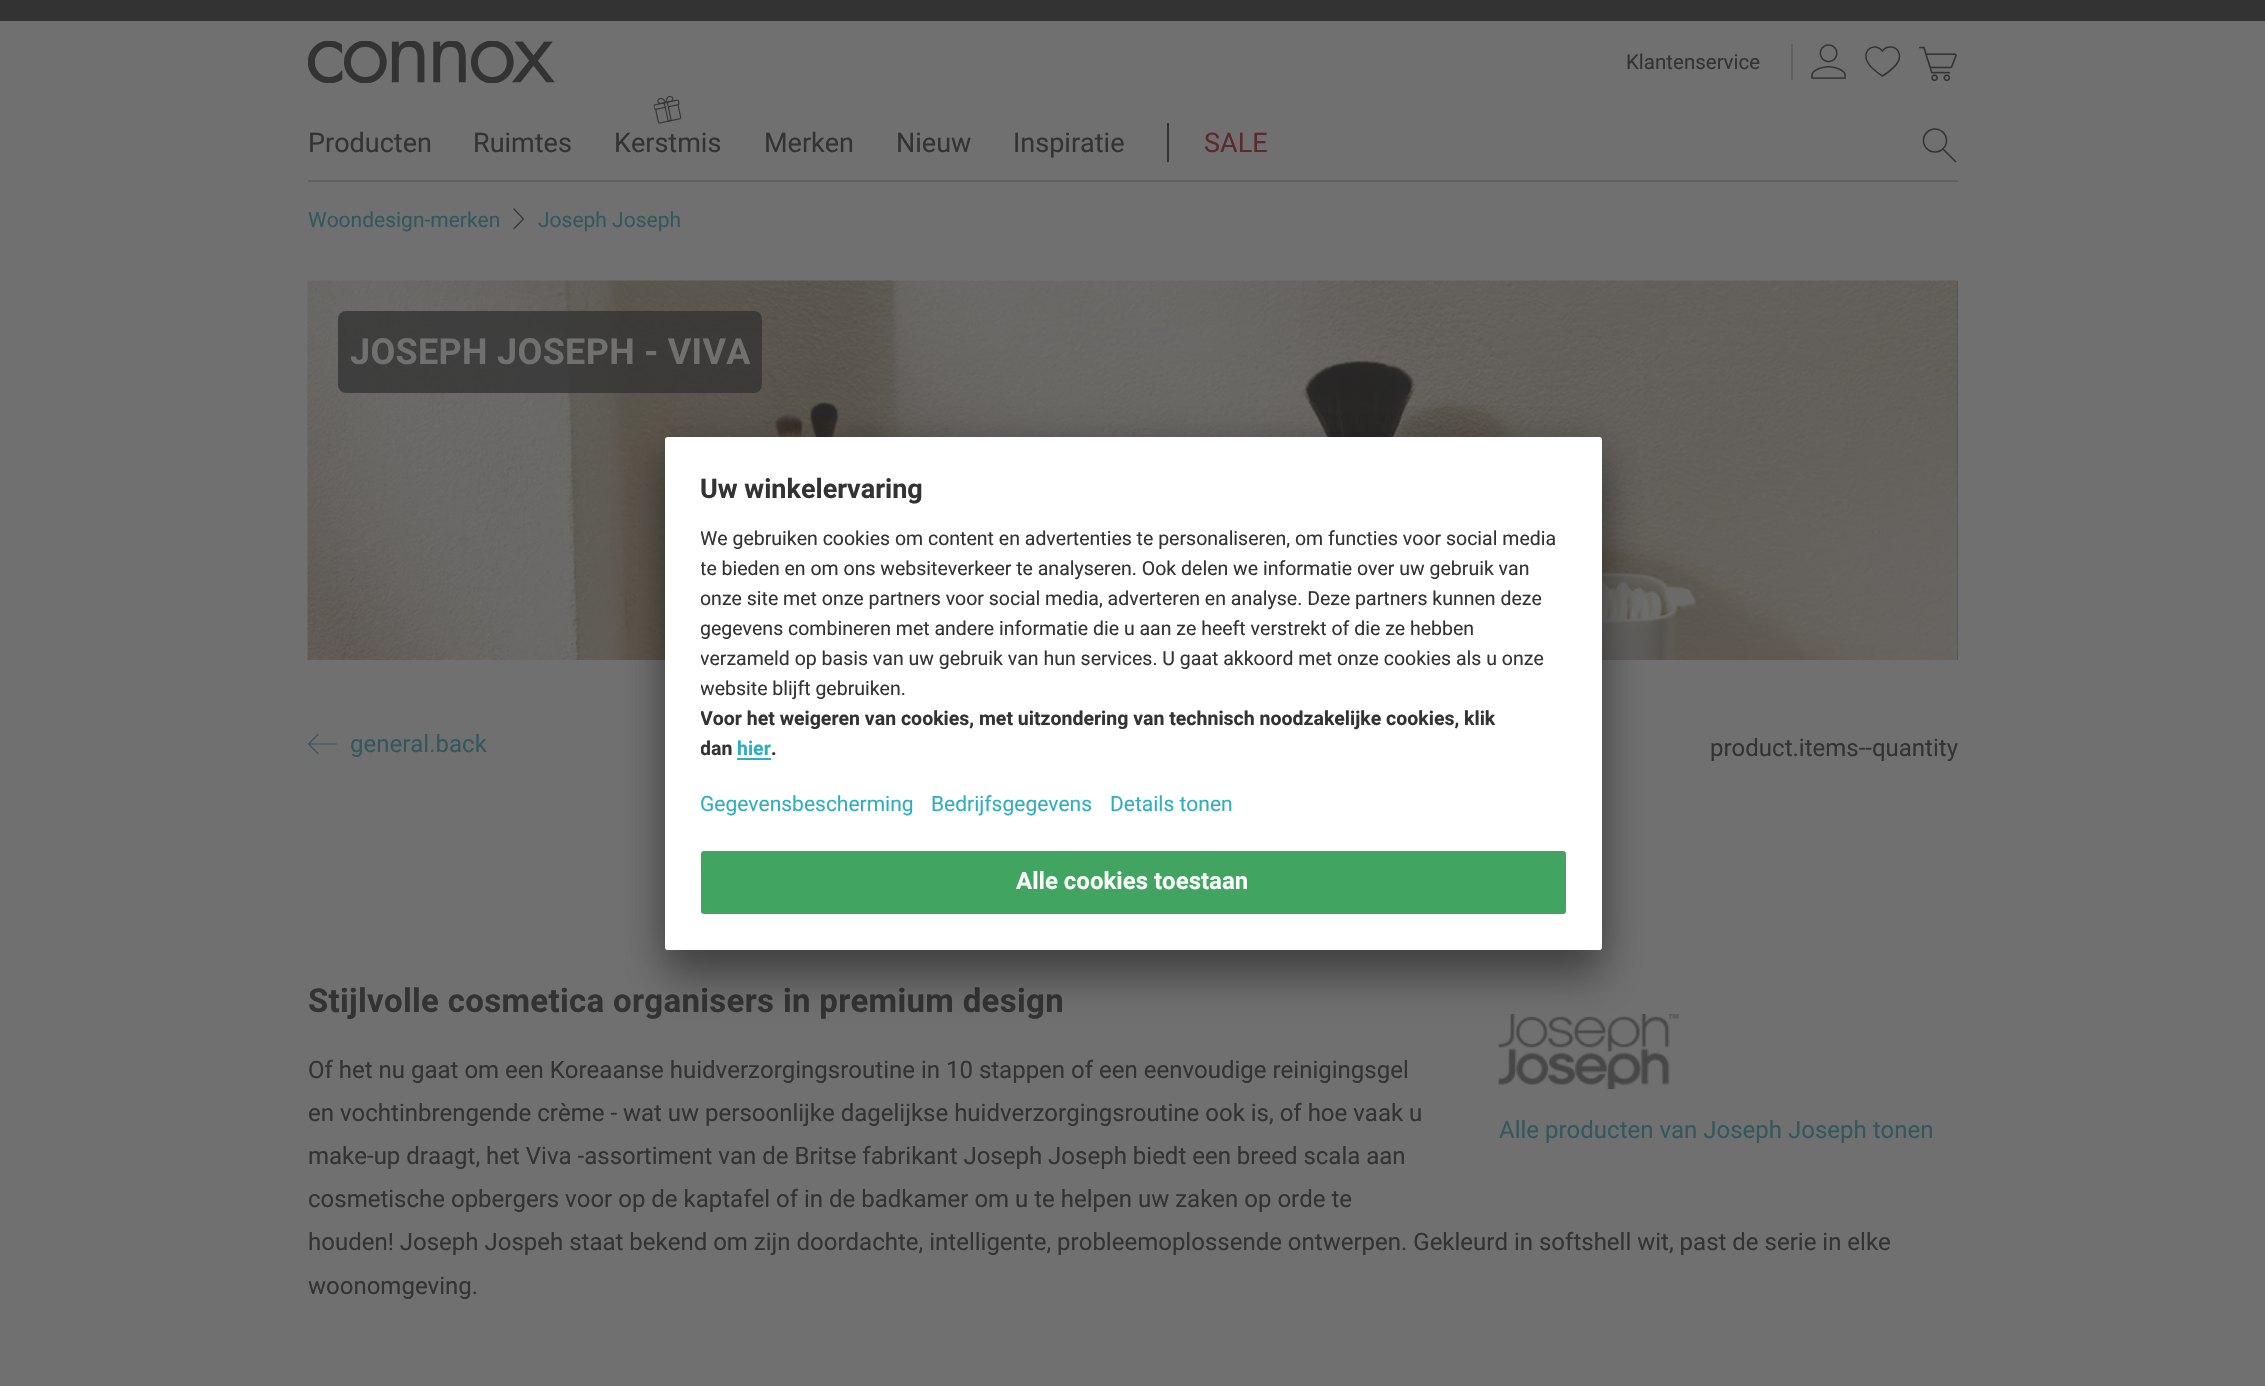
static SkFont makeFont(const char* family, int weight, float size, bool italic = false) {
  SkFontStyle style(weight, SkFontStyle::kNormal_Width,
    italic ? SkFontStyle::kItalic_Slant : SkFontStyle::kUpright_Slant);
  SkFont result(fontMgr->matchFamilyStyle(family, style), size);
  result.setSubpixel(true);
  return result;
}

static void text(SkCanvas* c, const char* s, float x, float y, const SkFont& font, SkColor color) {
  SkPaint ink(SkColor4f::FromColor(color));
  ink.setAntiAlias(true);
  c->drawString(s, x, y, font, ink);
}

static void spacedText(SkCanvas* c, const char* s, float x, float y, const SkFont& font, const SkPaint& ink, float letter, float word) {
  std::vector<SkGlyphID> glyphs(font.countText(s, strlen(s), SkTextEncoding::kUTF8));
  std::vector<float> xs(glyphs.size());
  font.textToGlyphs(s, strlen(s), SkTextEncoding::kUTF8, glyphs);
  font.getXPos(glyphs, xs, x);
  float extra = 0;
  for (size_t i = 0; i < glyphs.size(); i++) {
    xs[i] += extra;
    extra += letter + word * (glyphs[i] == font.unicharToGlyph(' '));
  }
  c->drawTextBlob(SkTextBlob::MakeFromPosHGlyphs(glyphs, xs, y, font), 0, 0, ink);
}

static void box(SkCanvas* c, float l, float t, float r, float b, SkColor color) {
  SkPaint ink(SkColor4f::FromColor(color));
  ink.setAntiAlias(true);
  c->drawRect(SkRect::MakeLTRB(l, t, r, b), ink);
}

static void roundBox(SkCanvas* c, float l, float t, float r, float b, float radius, SkColor color) {
  SkPaint ink(SkColor4f::FromColor(color));
  ink.setAntiAlias(true);
  c->drawRoundRect(SkRect::MakeLTRB(l, t, r, b), radius, radius, ink);
}

static void picture(SkCanvas* c, const char* path, float l, float t, float r, float b) {
  auto image = SkImages::DeferredFromEncodedData(SkData::MakeFromFileName(path));
  c->drawImageRect(image, SkRect::MakeLTRB(l, t, r, b), SkSamplingOptions());
}

void draw(SkCanvas* c) {
  SkPaint paint;
  paint.setAntiAlias(true);
  c->clear(0xff707070);
  box(c, 0, 0, 2265, 21, 0xff333333);
  picture(c, "img_01.png", 308, 41, 555, 83);
  box(c, 1791, 44, 1793, 80, 0xff60605f);
  SkFont face1 = makeFont("Roboto", 400, 20.5f);
  text(c, "Klantenservice", 1626, 69, face1, 0xff333333);
  picture(c, "img_02.png", 1811, 44, 1846, 79);
  paint.setStyle(SkPaint::kStroke_Style);
  paint.setStrokeWidth(1.5f);
  paint.setColor(0xff333333);
  c->drawPath(SkPathBuilder().moveTo(1890.5f, 47).cubicTo(1887.5f, 47, 1884, 48.5f, 1882.5f, 51).cubicTo(1875, 41.5f, 1861, 50, 1867.5f, 62).cubicTo(1870.5f, 68, 1877, 72.5f, 1882.5f, 76).cubicTo(1888, 72.5f, 1894.5f, 68, 1898, 62).cubicTo(1901.5f, 55.5f, 1898.5f, 47, 1890.5f, 47).close().detach(), paint);
  picture(c, "img_03.png", 1919, 46, 1957, 82);
  box(c, 308, 180, 1958, 182, 0xff60605f);
  SkFont face2 = makeFont("Roboto", 400, 27);
  text(c, "Producten", 308, 152, face2, 0xff333333);
  text(c, "Ruimtes", 473, 152, face2, 0xff333333);
  picture(c, "img_04.png", 653, 95, 682, 124);
  text(c, "Kerstmis", 614, 152, face2, 0xff333333);
  text(c, "Merken", 764, 152, face2, 0xff333333);
  text(c, "Nieuw", 896, 152, face2, 0xff333333);
  text(c, "Inspiratie", 1013, 152, face2, 0xff333333);
  box(c, 1167, 123, 1169, 162, 0xff333333);
  text(c, "SALE", 1204, 152, face2, 0xff5b2a2d);
  c->drawCircle(1935, 140.5f, 11.5f, paint);
  paint.setStrokeCap(SkPaint::kRound_Cap);
  c->drawPath(SkPathBuilder().moveTo(1955.5f, 161.5f).lineTo(1943, 149).detach(), paint);
  SkFont face3 = makeFont("Roboto", 400, 21);
  text(c, "Woondesign-merken", 308, 227, face3, 0xff32585d);
  paint.setStrokeWidth(1.1f);
  c->drawPath(SkPathBuilder().moveTo(514, 228.5f).lineTo(523.5f, 219).lineTo(514, 209).detach(), paint);
  text(c, "Joseph Joseph", 538, 227, face3, 0xff32585d);
  box(c, 1957, 281, 1958, 660, 0xff4a4a4a);
  picture(c, "img_05.png", 307, 280, 1958, 660);
  roundBox(c, 338, 311, 762, 393, 8, 0xcc333333);
  SkFont face4 = makeFont("Roboto", 700, 36);
  paint.setStyle(SkPaint::kFill_Style);
  paint.setColor(0xff707070);
  spacedText(c, "JOSEPH JOSEPH - VIVA", 350, 364, face4, paint, 0.3f, 0);
  paint.setStyle(SkPaint::kStroke_Style);
  paint.setStrokeWidth(1.2f);
  paint.setColor(0xff32585d);
  c->drawPath(SkPathBuilder().moveTo(308.5f, 744).lineTo(336.5f, 744).moveTo(318, 753.5f).lineTo(308.5f, 744).lineTo(318, 734.5f).detach(), paint);
  SkFont face5 = makeFont("Roboto", 400, 24);
  text(c, "general.back", 350, 752, face5, 0xff32585d);
  text(c, "product.items--quantity", 1710, 756, face5, 0xff333333);
  SkFont face6 = makeFont("Roboto", 700, 33);
  paint.setStyle(SkPaint::kFill_Style);
  paint.setColor(0xff333333);
  spacedText(c, "Stijlvolle cosmetica organisers in premium design", 308, 1012, face6, paint, 0.3f, 0);
  text(c, "Of het nu gaat om een Koreaanse huidverzorgingsroutine in 10 stappen of een eenvoudige reinigingsgel", 308, 1078, face5, 0xff333333);
  text(c, "en vochtinbrengende crème - wat uw persoonlijke dagelijkse huidverzorgingsroutine ook is, of hoe vaak u", 308, 1121, face5, 0xff333333);
  text(c, "make-up draagt, het Viva -assortiment van de Britse fabrikant Joseph Joseph biedt een breed scala aan", 308, 1164, face5, 0xff333333);
  text(c, "cosmetische opbergers voor op de kaptafel of in de badkamer om u te helpen uw zaken op orde te", 308, 1207, face5, 0xff333333);
  text(c, "houden! Joseph Jospeh staat bekend om zijn doordachte, intelligente, probleemoplossende ontwerpen. Gekleurd in softshell wit, past de serie in elke", 308, 1250, face5, 0xff333333);
  text(c, "woonomgeving.", 308, 1294, face5, 0xff333333);
  picture(c, "img_06.png", 1498, 1014, 1679, 1089);
  text(c, "Alle producten van Joseph Joseph tonen", 1499, 1138, face5, 0xff32585d);
  paint.setColor(0x4d000000);
  paint.setMaskFilter(SkMaskFilter::MakeBlur(kNormal_SkBlurStyle, 21));
  c->drawRoundRect(SkRect::MakeLTRB(665, 467, 1602, 980), 3, 3, paint);
  paint.setMaskFilter(nullptr);
  paint.setColor(0x38000000);
  paint.setMaskFilter(SkMaskFilter::MakeBlur(kNormal_SkBlurStyle, 19.5f));
  c->drawRoundRect(SkRect::MakeLTRB(665, 444, 1602, 957), 3, 3, paint);
  paint.setMaskFilter(nullptr);
  roundBox(c, 665, 437, 1602, 950, 3, 0xffffffff);
  c->save();
  c->clipPath(SkPathBuilder().moveTo(668, 437).lineTo(1599, 437).cubicTo(1600.5f, 437, 1602, 438.5f, 1602, 440).lineTo(1602, 947).cubicTo(1602, 948.5f, 1600.5f, 950, 1599, 950).lineTo(668, 950).cubicTo(666.5f, 950, 665, 948.5f, 665, 947).lineTo(665, 440).cubicTo(665, 438.5f, 666.5f, 437, 668, 437).close().detach(), true);
  c->clipPath(SkPathBuilder().moveTo(668, 437).lineTo(1599, 437).cubicTo(1600.5f, 437, 1602, 438.5f, 1602, 440).lineTo(1602, 839).lineTo(665, 839).lineTo(665, 440).cubicTo(665, 438.5f, 666.5f, 437, 668, 437).close().detach(), true);
  box(c, 665, 438, 1602, 839, 0xffffffff);
  c->restore();
  SkFont face7 = makeFont("Roboto", 700, 27);
  text(c, "Uw winkelervaring", 700, 498, face7, 0xff333333);
  c->save();
  c->clipRect(SkRect::MakeLTRB(701, 518, 1566, 770));
  SkFont face8 = makeFont("Roboto", 400, 19.5f);
  text(c, "We gebruiken cookies om content en advertenties te personaliseren, om functies voor social media", 700, 545, face8, 0xff333333);
  text(c, "te bieden en om ons websiteverkeer te analyseren. Ook delen we informatie over uw gebruik van", 700, 575, face8, 0xff333333);
  text(c, "onze site met onze partners voor social media, adverteren en analyse. Deze partners kunnen deze", 700, 605, face8, 0xff333333);
  text(c, "gegevens combineren met andere informatie die u aan ze heeft verstrekt of die ze hebben", 700, 635, face8, 0xff333333);
  text(c, "verzameld op basis van uw gebruik van hun services. U gaat akkoord met onze cookies als u onze", 700, 665, face8, 0xff333333);
  text(c, "website blijft gebruiken.", 700, 695, face8, 0xff333333);
  SkFont face9 = makeFont("Roboto", 700, 19.5f);
  text(c, "Voor het weigeren van cookies, met uitzondering van technisch noodzakelijke cookies, klik", 700, 725, face9, 0xff333333);
  text(c, "dan", 700, 755, face9, 0xff333333);
  c->restore();
  text(c, "hier", 737, 755, face9, 0xff2faebe);
  text(c, ".", 771, 755, face9, 0xff333333);
  box(c, 737, 758, 771, 760, 0xff2faebe);
  text(c, "Gegevensbescherming", 700, 811, face3, 0xff2faebe);
  text(c, "Bedrijfsgegevens", 931, 811, face3, 0xff2faebe);
  text(c, "Details tonen", 1110, 811, face3, 0xff2faebe);
  paint.setColor(0xffffffff);
  c->drawPath(SkPathBuilder().moveTo(665, 839).lineTo(1602, 839).lineTo(1602, 947).cubicTo(1602, 948.5f, 1600.5f, 950, 1599, 950).lineTo(668, 950).cubicTo(666.5f, 950, 665, 948.5f, 665, 947).close().detach(), paint);
  roundBox(c, 701, 851, 1566, 914, 3, 0xff41a561);
  SkFont face10 = makeFont("Roboto", 700, 24);
  text(c, "Alle cookies toestaan", 1016, 889, face10, 0xfffafafa);
}
